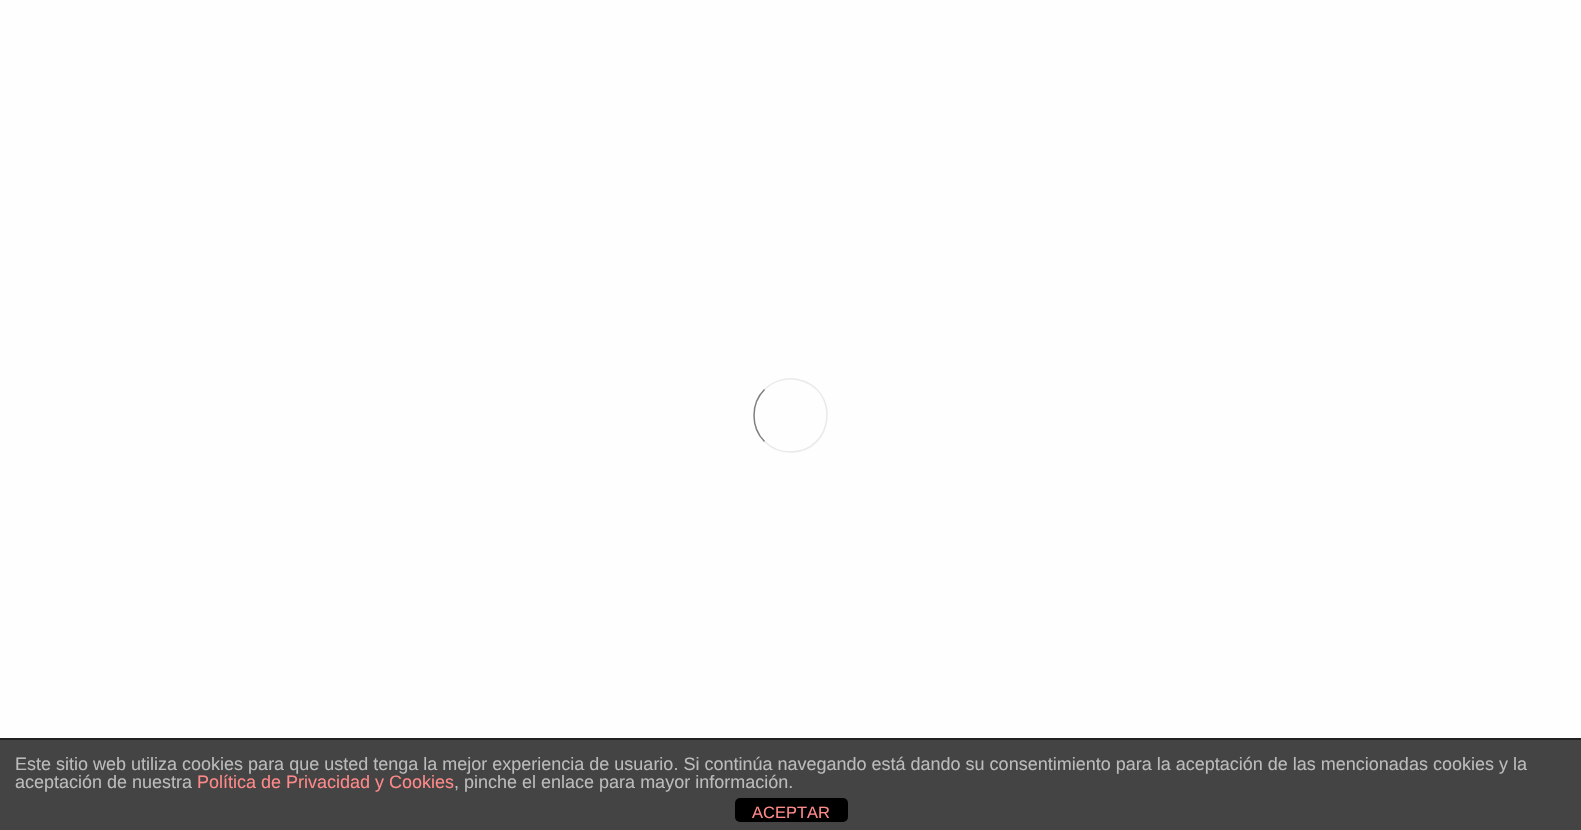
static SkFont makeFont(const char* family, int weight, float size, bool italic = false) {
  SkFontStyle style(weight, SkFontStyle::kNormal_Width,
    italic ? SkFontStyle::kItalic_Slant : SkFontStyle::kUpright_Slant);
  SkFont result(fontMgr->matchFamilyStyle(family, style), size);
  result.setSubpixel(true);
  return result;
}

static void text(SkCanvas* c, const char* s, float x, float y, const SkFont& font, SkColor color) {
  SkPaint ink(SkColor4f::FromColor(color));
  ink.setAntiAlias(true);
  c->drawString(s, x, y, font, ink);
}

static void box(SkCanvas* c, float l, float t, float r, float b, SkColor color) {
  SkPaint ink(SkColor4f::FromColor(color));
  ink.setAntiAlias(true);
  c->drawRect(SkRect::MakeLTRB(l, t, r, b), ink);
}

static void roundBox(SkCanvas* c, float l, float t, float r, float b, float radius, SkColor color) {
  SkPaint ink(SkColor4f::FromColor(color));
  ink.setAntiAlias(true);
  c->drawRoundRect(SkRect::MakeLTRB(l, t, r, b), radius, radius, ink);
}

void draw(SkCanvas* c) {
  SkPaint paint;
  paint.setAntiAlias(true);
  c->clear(0xfffefefe);
  paint.setStyle(SkPaint::kStroke_Style);
  paint.setStrokeWidth(1.5f);
  paint.setColor(0xffeaeaea);
  c->drawPath(SkPathBuilder().moveTo(764.5f, 389.5f).cubicTo(773, 381, 786, 377, 797.5f, 379.5f).cubicTo(841, 388, 834.5f, 452, 790.5f, 452).cubicTo(781, 452, 771.5f, 448.5f, 764.5f, 441.5f).detach(), paint);
  paint.setColor(0x80000000);
  c->drawPath(SkPathBuilder().moveTo(764.5f, 441.5f).cubicTo(750.5f, 427.5f, 750.5f, 403.5f, 764.5f, 389.5f).detach(), paint);
  box(c, 0, 740, 1581, 830, 0xff444444);
  box(c, 0, 738, 1581, 740, 0xff222222);
  SkFont face1 = makeFont("Liberation Sans", 400, 18);
  text(c, "Este sitio web utiliza cookies para que usted tenga la mejor experiencia de usuario. Si continúa navegando está dando su consentimiento para la aceptación de las mencionadas cookies y la", 15, 770, face1, 0xffbbbbbb);
  text(c, "aceptación de nuestra", 15, 788, face1, 0xffbbbbbb);
  text(c, "Política de Privacidad y Cookies", 197, 788, face1, 0xffff8888);
  text(c, ", pinche el enlace para mayor información.", 454, 788, face1, 0xffbbbbbb);
  roundBox(c, 735, 798, 848, 822, 5, 0xff000000);
  SkFont face2 = makeFont("Liberation Sans", 400, 16.5f);
  text(c, "ACEPTAR", 752, 818, face2, 0xffff8888);
}
